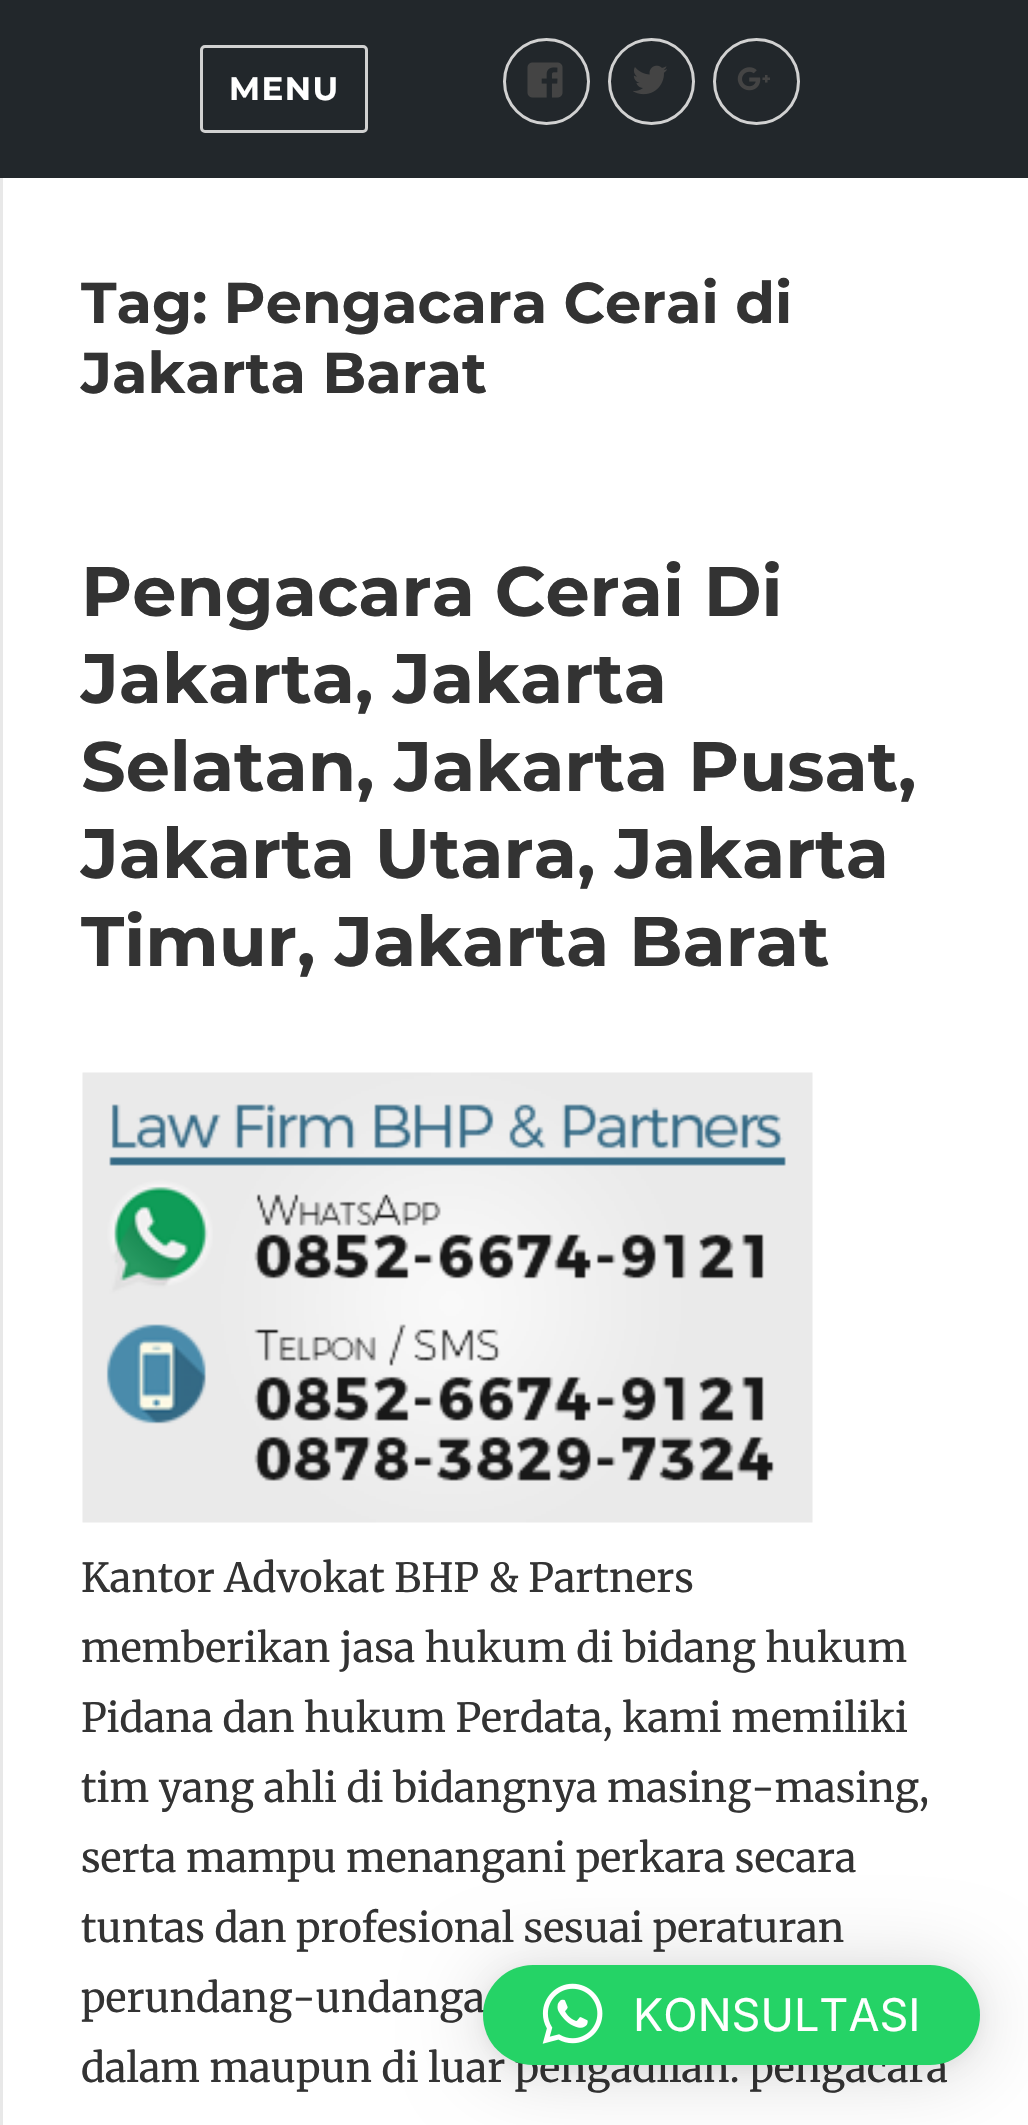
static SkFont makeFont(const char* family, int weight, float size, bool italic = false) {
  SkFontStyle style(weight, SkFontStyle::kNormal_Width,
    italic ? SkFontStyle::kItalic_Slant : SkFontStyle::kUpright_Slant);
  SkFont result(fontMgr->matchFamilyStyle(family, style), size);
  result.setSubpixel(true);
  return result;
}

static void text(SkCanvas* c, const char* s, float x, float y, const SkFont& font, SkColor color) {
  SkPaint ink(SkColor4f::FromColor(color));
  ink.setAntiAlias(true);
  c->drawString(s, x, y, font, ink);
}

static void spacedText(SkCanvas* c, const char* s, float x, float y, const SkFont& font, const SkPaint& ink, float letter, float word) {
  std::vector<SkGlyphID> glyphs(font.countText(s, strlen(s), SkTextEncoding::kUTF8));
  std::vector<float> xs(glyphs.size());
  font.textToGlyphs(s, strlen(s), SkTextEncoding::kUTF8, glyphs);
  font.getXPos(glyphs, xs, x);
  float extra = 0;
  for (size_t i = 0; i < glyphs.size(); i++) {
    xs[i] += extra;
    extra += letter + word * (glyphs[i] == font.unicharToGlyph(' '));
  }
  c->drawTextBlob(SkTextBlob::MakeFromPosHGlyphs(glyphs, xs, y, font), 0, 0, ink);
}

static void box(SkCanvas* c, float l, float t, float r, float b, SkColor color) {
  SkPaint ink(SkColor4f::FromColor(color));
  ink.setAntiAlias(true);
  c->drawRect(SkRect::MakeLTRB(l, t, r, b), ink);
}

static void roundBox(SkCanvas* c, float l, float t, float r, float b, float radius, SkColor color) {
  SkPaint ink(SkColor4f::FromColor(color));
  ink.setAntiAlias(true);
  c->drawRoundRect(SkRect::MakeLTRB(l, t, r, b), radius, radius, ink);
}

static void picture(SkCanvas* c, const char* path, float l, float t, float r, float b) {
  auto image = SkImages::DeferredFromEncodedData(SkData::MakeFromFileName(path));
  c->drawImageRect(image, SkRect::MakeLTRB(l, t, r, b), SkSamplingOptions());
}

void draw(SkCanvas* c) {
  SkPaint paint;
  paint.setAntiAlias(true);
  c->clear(0xff22272b);
  paint.setStyle(SkPaint::kStroke_Style);
  paint.setStrokeWidth(3);
  paint.setColor(0xffd1d1d1);
  c->drawRoundRect(SkRect::MakeLTRB(201.5f, 46.5f, 366.5f, 131.5f), 3.5f, 3.5f, paint);
  SkFont face1 = makeFont("Montserrat", 700, 32.5f);
  paint.setStyle(SkPaint::kFill_Style);
  paint.setColor(0xffffffff);
  spacedText(c, "MENU", 229, 100, face1, paint, 1.5f, 0);
  paint.setStyle(SkPaint::kStroke_Style);
  paint.setColor(0xffd1d1d1);
  c->drawCircle(546.5f, 81.5f, 42, paint);
  picture(c, "img_01.png", 527, 62, 563, 98);
  c->drawCircle(651.5f, 81.5f, 42, paint);
  picture(c, "img_02.png", 633, 65, 667, 95);
  c->drawCircle(756.5f, 81.5f, 42, paint);
  picture(c, "img_03.png", 737, 67, 770, 91);
  box(c, 3, 178, 1028, 2125, 0xffffffff);
  box(c, 0, 178, 3, 2125, 0xffe8e8e8);
  SkFont face2 = makeFont("Montserrat", 700, 57.5f);
  text(c, "Tag: Pengacara Cerai di", 81, 323, face2, 0xff333333);
  text(c, "Jakarta Barat", 81, 393, face2, 0xff333333);
  SkFont face3 = makeFont("Montserrat", 700, 70);
  text(c, "Pengacara Cerai Di", 81, 616, face3, 0xff333333);
  text(c, "Jakarta, Jakarta", 81, 703, face3, 0xff333333);
  text(c, "Selatan, Jakarta Pusat,", 81, 791, face3, 0xff333333);
  text(c, "Jakarta Utara, Jakarta", 81, 878, face3, 0xff333333);
  text(c, "Timur, Jakarta Barat", 81, 966, face3, 0xff333333);
  picture(c, "img_04.png", 82, 1072, 813, 1523);
  SkFont face4 = makeFont("Merriweather", 400, 40);
  text(c, "Kantor Advokat BHP & Partners", 81, 1592, face4, 0xff333333);
  text(c, "memberikan jasa hukum di bidang hukum", 81, 1662, face4, 0xff333333);
  text(c, "Pidana dan hukum Perdata, kami memiliki", 81, 1732, face4, 0xff333333);
  text(c, "tim yang ahli di bidangnya masing-masing,", 81, 1802, face4, 0xff333333);
  text(c, "serta mampu menangani perkara secara", 81, 1872, face4, 0xff333333);
  text(c, "tuntas dan profesional sesuai peraturan", 81, 1942, face4, 0xff333333);
  text(c, "perundang-undanga", 81, 2012, face4, 0xff333333);
  text(c, "dalam maupun di luar pengadilan. pengacara", 81, 2082, face4, 0xff333333);
  paint.setStyle(SkPaint::kFill_Style);
  paint.setColor(0x29000000);
  paint.setMaskFilter(SkMaskFilter::MakeBlur(kNormal_SkBlurStyle, 40));
  c->drawRoundRect(SkRect::MakeLTRB(483, 1970, 980, 2070), 50, 50, paint);
  paint.setMaskFilter(nullptr);
  paint.setColor(0x0f000000);
  paint.setMaskFilter(SkMaskFilter::MakeBlur(kNormal_SkBlurStyle, 7.5f));
  c->drawRoundRect(SkRect::MakeLTRB(483, 1968, 980, 2068), 50, 50, paint);
  paint.setMaskFilter(nullptr);
  roundBox(c, 483, 1965, 980, 2065, 50, 0xff25d366);
  picture(c, "img_05.png", 542, 1983, 603, 2044);
  SkFont face5 = makeFont("Inter", 400, 45);
  text(c, "KONSULTASI", 633, 2031, face5, 0xffffffff);
}
